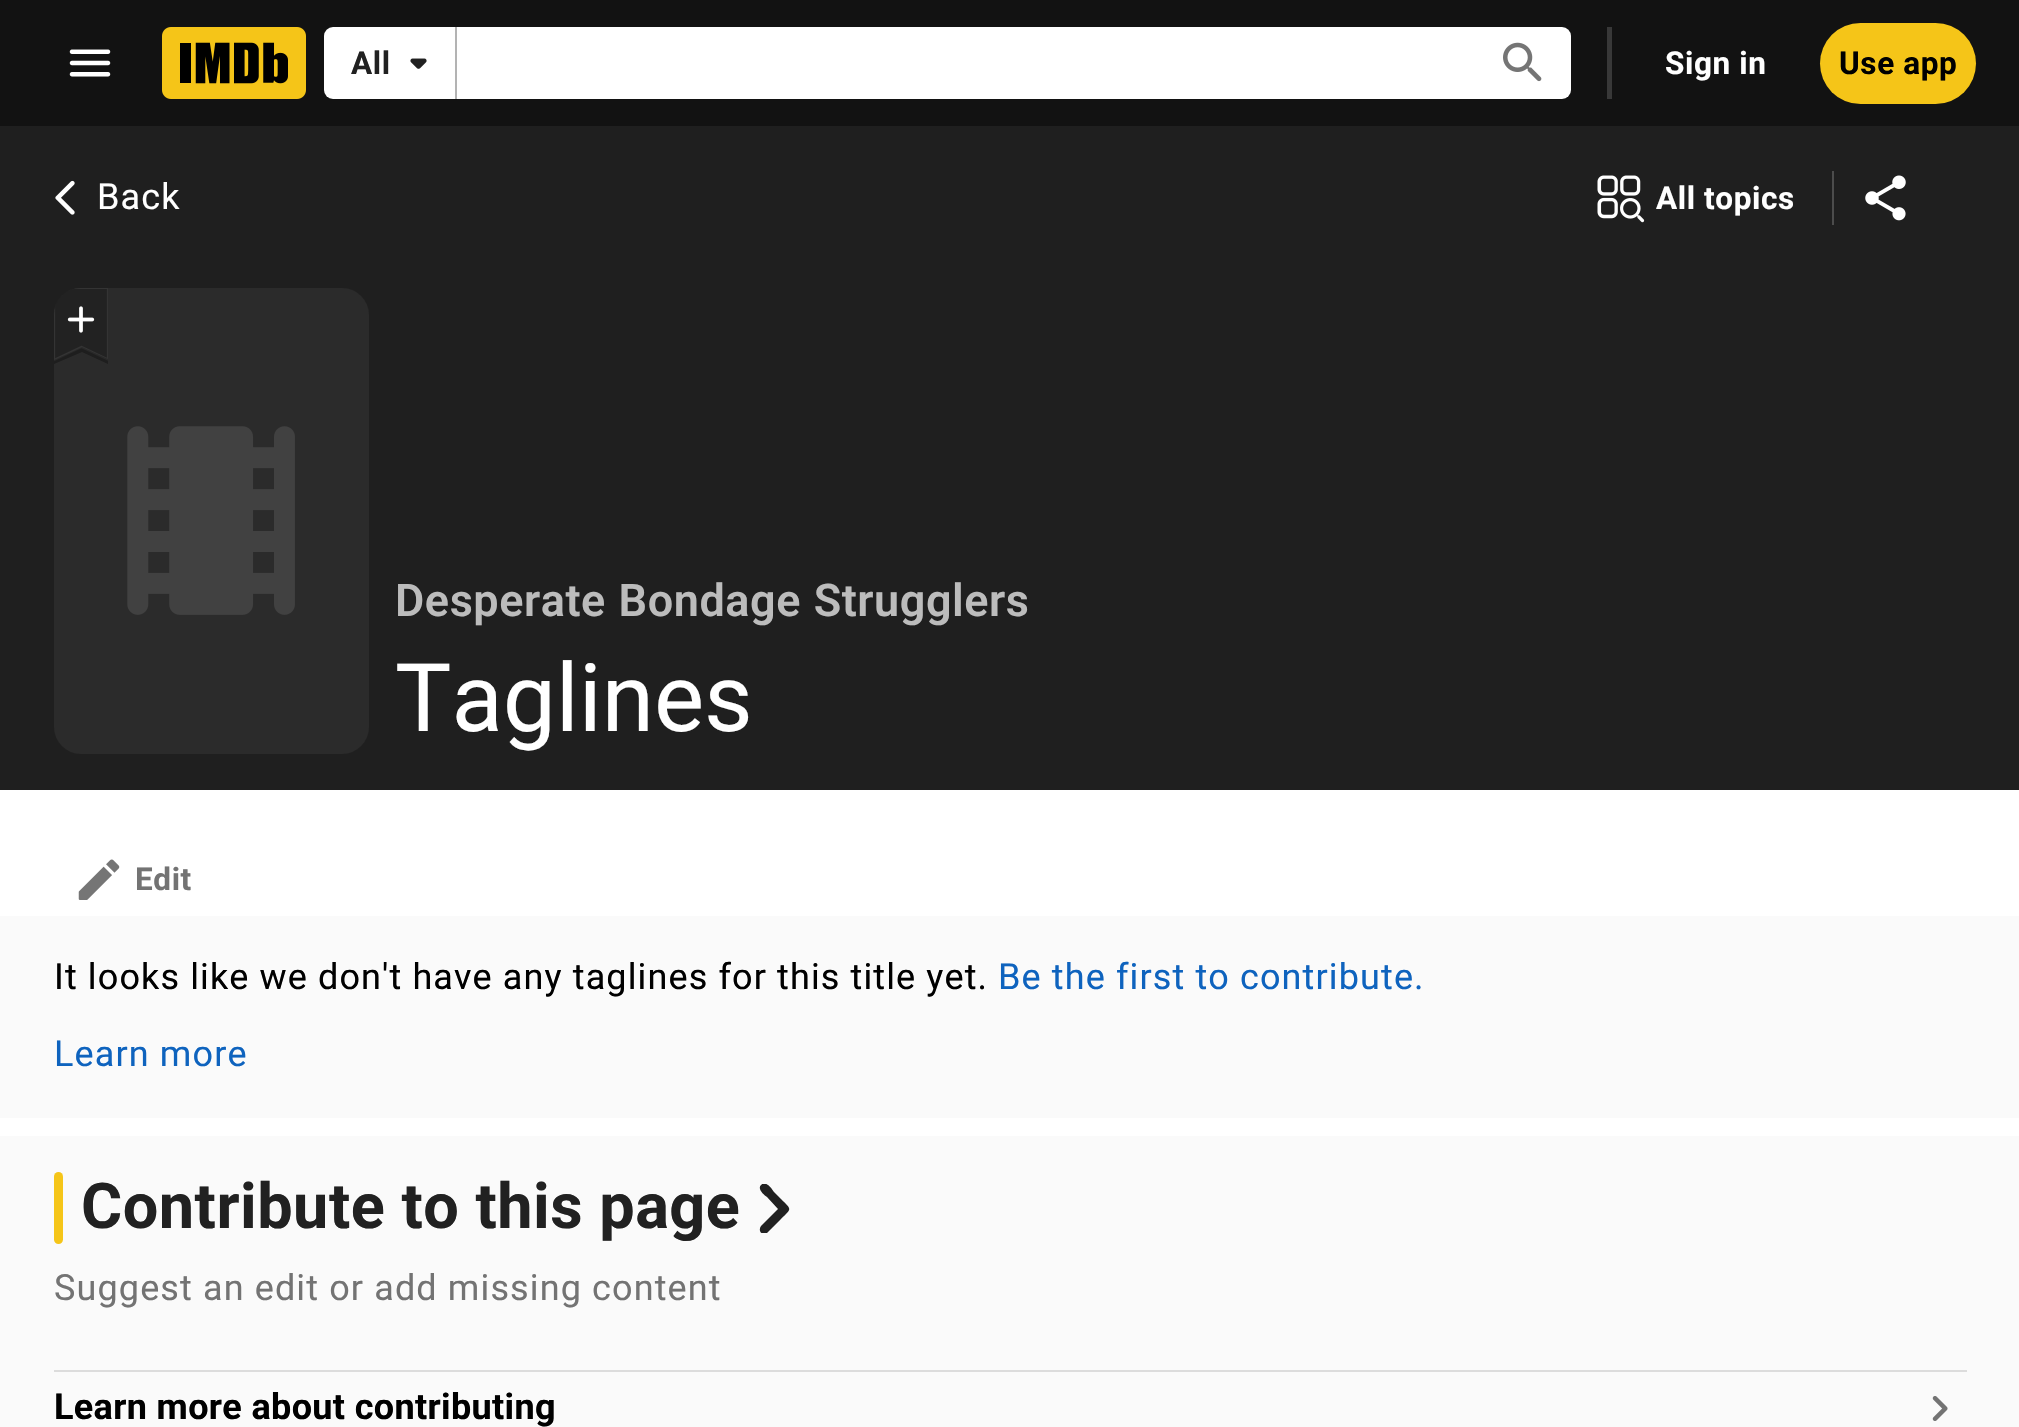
static SkFont makeFont(const char* family, int weight, float size, bool italic = false) {
  SkFontStyle style(weight, SkFontStyle::kNormal_Width,
    italic ? SkFontStyle::kItalic_Slant : SkFontStyle::kUpright_Slant);
  SkFont result(fontMgr->matchFamilyStyle(family, style), size);
  result.setSubpixel(true);
  return result;
}

static void text(SkCanvas* c, const char* s, float x, float y, const SkFont& font, SkColor color) {
  SkPaint ink(SkColor4f::FromColor(color));
  ink.setAntiAlias(true);
  c->drawString(s, x, y, font, ink);
}

static void spacedText(SkCanvas* c, const char* s, float x, float y, const SkFont& font, const SkPaint& ink, float letter, float word) {
  std::vector<SkGlyphID> glyphs(font.countText(s, strlen(s), SkTextEncoding::kUTF8));
  std::vector<float> xs(glyphs.size());
  font.textToGlyphs(s, strlen(s), SkTextEncoding::kUTF8, glyphs);
  font.getXPos(glyphs, xs, x);
  float extra = 0;
  for (size_t i = 0; i < glyphs.size(); i++) {
    xs[i] += extra;
    extra += letter + word * (glyphs[i] == font.unicharToGlyph(' '));
  }
  c->drawTextBlob(SkTextBlob::MakeFromPosHGlyphs(glyphs, xs, y, font), 0, 0, ink);
}

static void box(SkCanvas* c, float l, float t, float r, float b, SkColor color) {
  SkPaint ink(SkColor4f::FromColor(color));
  ink.setAntiAlias(true);
  c->drawRect(SkRect::MakeLTRB(l, t, r, b), ink);
}

static void roundBox(SkCanvas* c, float l, float t, float r, float b, float radius, SkColor color) {
  SkPaint ink(SkColor4f::FromColor(color));
  ink.setAntiAlias(true);
  c->drawRoundRect(SkRect::MakeLTRB(l, t, r, b), radius, radius, ink);
}

static void picture(SkCanvas* c, const char* path, float l, float t, float r, float b) {
  auto image = SkImages::DeferredFromEncodedData(SkData::MakeFromFileName(path));
  c->drawImageRect(image, SkRect::MakeLTRB(l, t, r, b), SkSamplingOptions());
}

void draw(SkCanvas* c) {
  SkPaint paint;
  paint.setAntiAlias(true);
  c->clear(0xffffffff);
  box(c, 0, 0, 2019, 126, 0xff121212);
  picture(c, "img_01.png", 69, 49, 111, 77);
  picture(c, "img_02.png", 162, 27, 306, 99);
  roundBox(c, 324, 27, 1571, 99, 9, 0xffffffff);
  box(c, 455, 27, 457, 99, 0xffb3b3b3);
  SkFont face1 = makeFont("Roboto", 700, 31.5f);
  paint.setColor(0xff212121);
  spacedText(c, "All", 351, 74, face1, paint, 0.6f, 0);
  picture(c, "img_03.png", 410, 58, 427, 69);
  picture(c, "img_04.png", 1503, 42, 1542, 82);
  box(c, 1607, 27, 1612, 99, 0xff383838);
  paint.setColor(0xffffffff);
  spacedText(c, "Sign in", 1665, 74, face1, paint, 0.6f, 0);
  roundBox(c, 1820, 23, 1976, 104, 40.5f, 0xfff5c518);
  paint.setColor(0xff000000);
  spacedText(c, "Use app", 1839, 74, face1, paint, 0.6f, 0);
  box(c, 0, 126, 2019, 790, 0xff1f1f1f);
  picture(c, "img_05.png", 55, 180, 75, 215);
  SkFont face2 = makeFont("Roboto", 400, 36);
  paint.setColor(0xffffffff);
  spacedText(c, "Back", 97, 209, face2, paint, 1.12f, 0);
  picture(c, "img_06.png", 1597, 175, 1645, 223);
  spacedText(c, "All topics", 1656, 209, face1, paint, 0.6f, 0);
  box(c, 1832, 171, 1834, 225, 0xff4c4c4c);
  picture(c, "img_07.png", 1865, 175, 1906, 221);
  roundBox(c, 54, 288, 369, 754, 27, 0xff121212);
  roundBox(c, 54, 288, 369, 754, 27, 0x1affffff);
  picture(c, "img_08.png", 127, 426, 295, 615);
  paint.setColor(0xbf1f1f1f);
  c->drawPath(SkPathBuilder().moveTo(108, 288).lineTo(81, 288).cubicTo(66, 288, 54, 300, 54, 315).lineTo(54, 360).lineTo(82, 347).lineTo(108, 359).close().detach(), paint);
  c->save();
  c->clipPath(SkPathBuilder().moveTo(81, 288).lineTo(342, 288).cubicTo(357, 288, 369, 300, 369, 315).lineTo(369, 727).cubicTo(369, 742, 357, 754, 342, 754).lineTo(81, 754).cubicTo(66, 754, 54, 742, 54, 727).lineTo(54, 315).cubicTo(54, 300, 66, 288, 81, 288).close().detach(), true);
  c->clipRect(SkRect::MakeLTRB(54, 288, 108, 365));
  paint.setStyle(SkPaint::kStroke_Style);
  paint.setStrokeWidth(2.2f);
  paint.setColor(0x14ffffff);
  c->drawPath(SkPathBuilder().moveTo(108, 288).lineTo(54, 288).lineTo(54, 360).lineTo(81.5f, 347).lineTo(108, 359.5f).close().detach(), paint);
  c->restore();
  picture(c, "img_09.png", 67, 306, 95, 333);
  paint.setStyle(SkPaint::kFill_Style);
  paint.setColor(0x52000000);
  c->drawPath(SkPathBuilder().moveTo(108, 359).lineTo(108, 364).lineTo(82, 352).lineTo(54, 364).lineTo(54, 360).lineTo(82, 347).close().detach(), paint);
  SkFont face3 = makeFont("Roboto", 600, 45);
  paint.setColor(0xffbcbcbc);
  spacedText(c, "Desperate Bondage Strugglers", 395, 616, face3, paint, 0.55f, 1);
  SkFont face4 = makeFont("Roboto", 400, 94.5f);
  text(c, "Taglines", 395, 731, face4, 0xffffffff);
  picture(c, "img_10.png", 78, 859, 120, 900);
  paint.setColor(0xff737373);
  spacedText(c, "Edit", 135, 890, face1, paint, 0.6f, 0);
  box(c, 0, 916, 2019, 1118, 0xfffafafa);
  paint.setColor(0xff000000);
  spacedText(c, "It looks like we don't have any taglines for this title yet.", 54, 989, face2, paint, 1.12f, 0);
  paint.setColor(0xff0e63be);
  spacedText(c, "Be the first to contribute.", 998, 989, face2, paint, 1.12f, 0);
  spacedText(c, "Learn more", 54, 1066, face2, paint, 1.12f, 0);
  box(c, 0, 1136, 2019, 1427, 0xfffafafa);
  roundBox(c, 54, 1172, 63, 1244, 4.5f, 0xfff5c518);
  SkFont face5 = makeFont("Roboto", 700, 63);
  paint.setColor(0xff212121);
  spacedText(c, "Contribute to this page", 81, 1228, face5, paint, 0.5f, 0);
  c->save();
  c->clipRect(SkRect::MakeLTRB(749, 1184, 799, 1233));
  c->drawPath(SkPathBuilder().moveTo(761, 1185).cubicTo(757, 1189, 764, 1195, 767, 1197).lineTo(778, 1209).lineTo(761, 1226).cubicTo(758, 1230, 761, 1235, 766, 1234).lineTo(781, 1219).cubicTo(792, 1208, 792, 1210, 781, 1199).lineTo(774, 1192).cubicTo(772, 1189, 766, 1180, 761, 1185).close().detach(), paint);
  c->restore();
  paint.setColor(0xff737373);
  spacedText(c, "Suggest an edit or add missing content", 54, 1300, face2, paint, 1.12f, 0);
  box(c, 54, 1370, 1967, 1372, 0xffdcdcdc);
  SkFont face6 = makeFont("Roboto", 700, 36);
  paint.setColor(0xff000000);
  spacedText(c, "Learn more about contributing", 54, 1419, face6, paint, 0.35f, 0);
  picture(c, "img_11.png", 1932, 1396, 1948, 1421);
}
